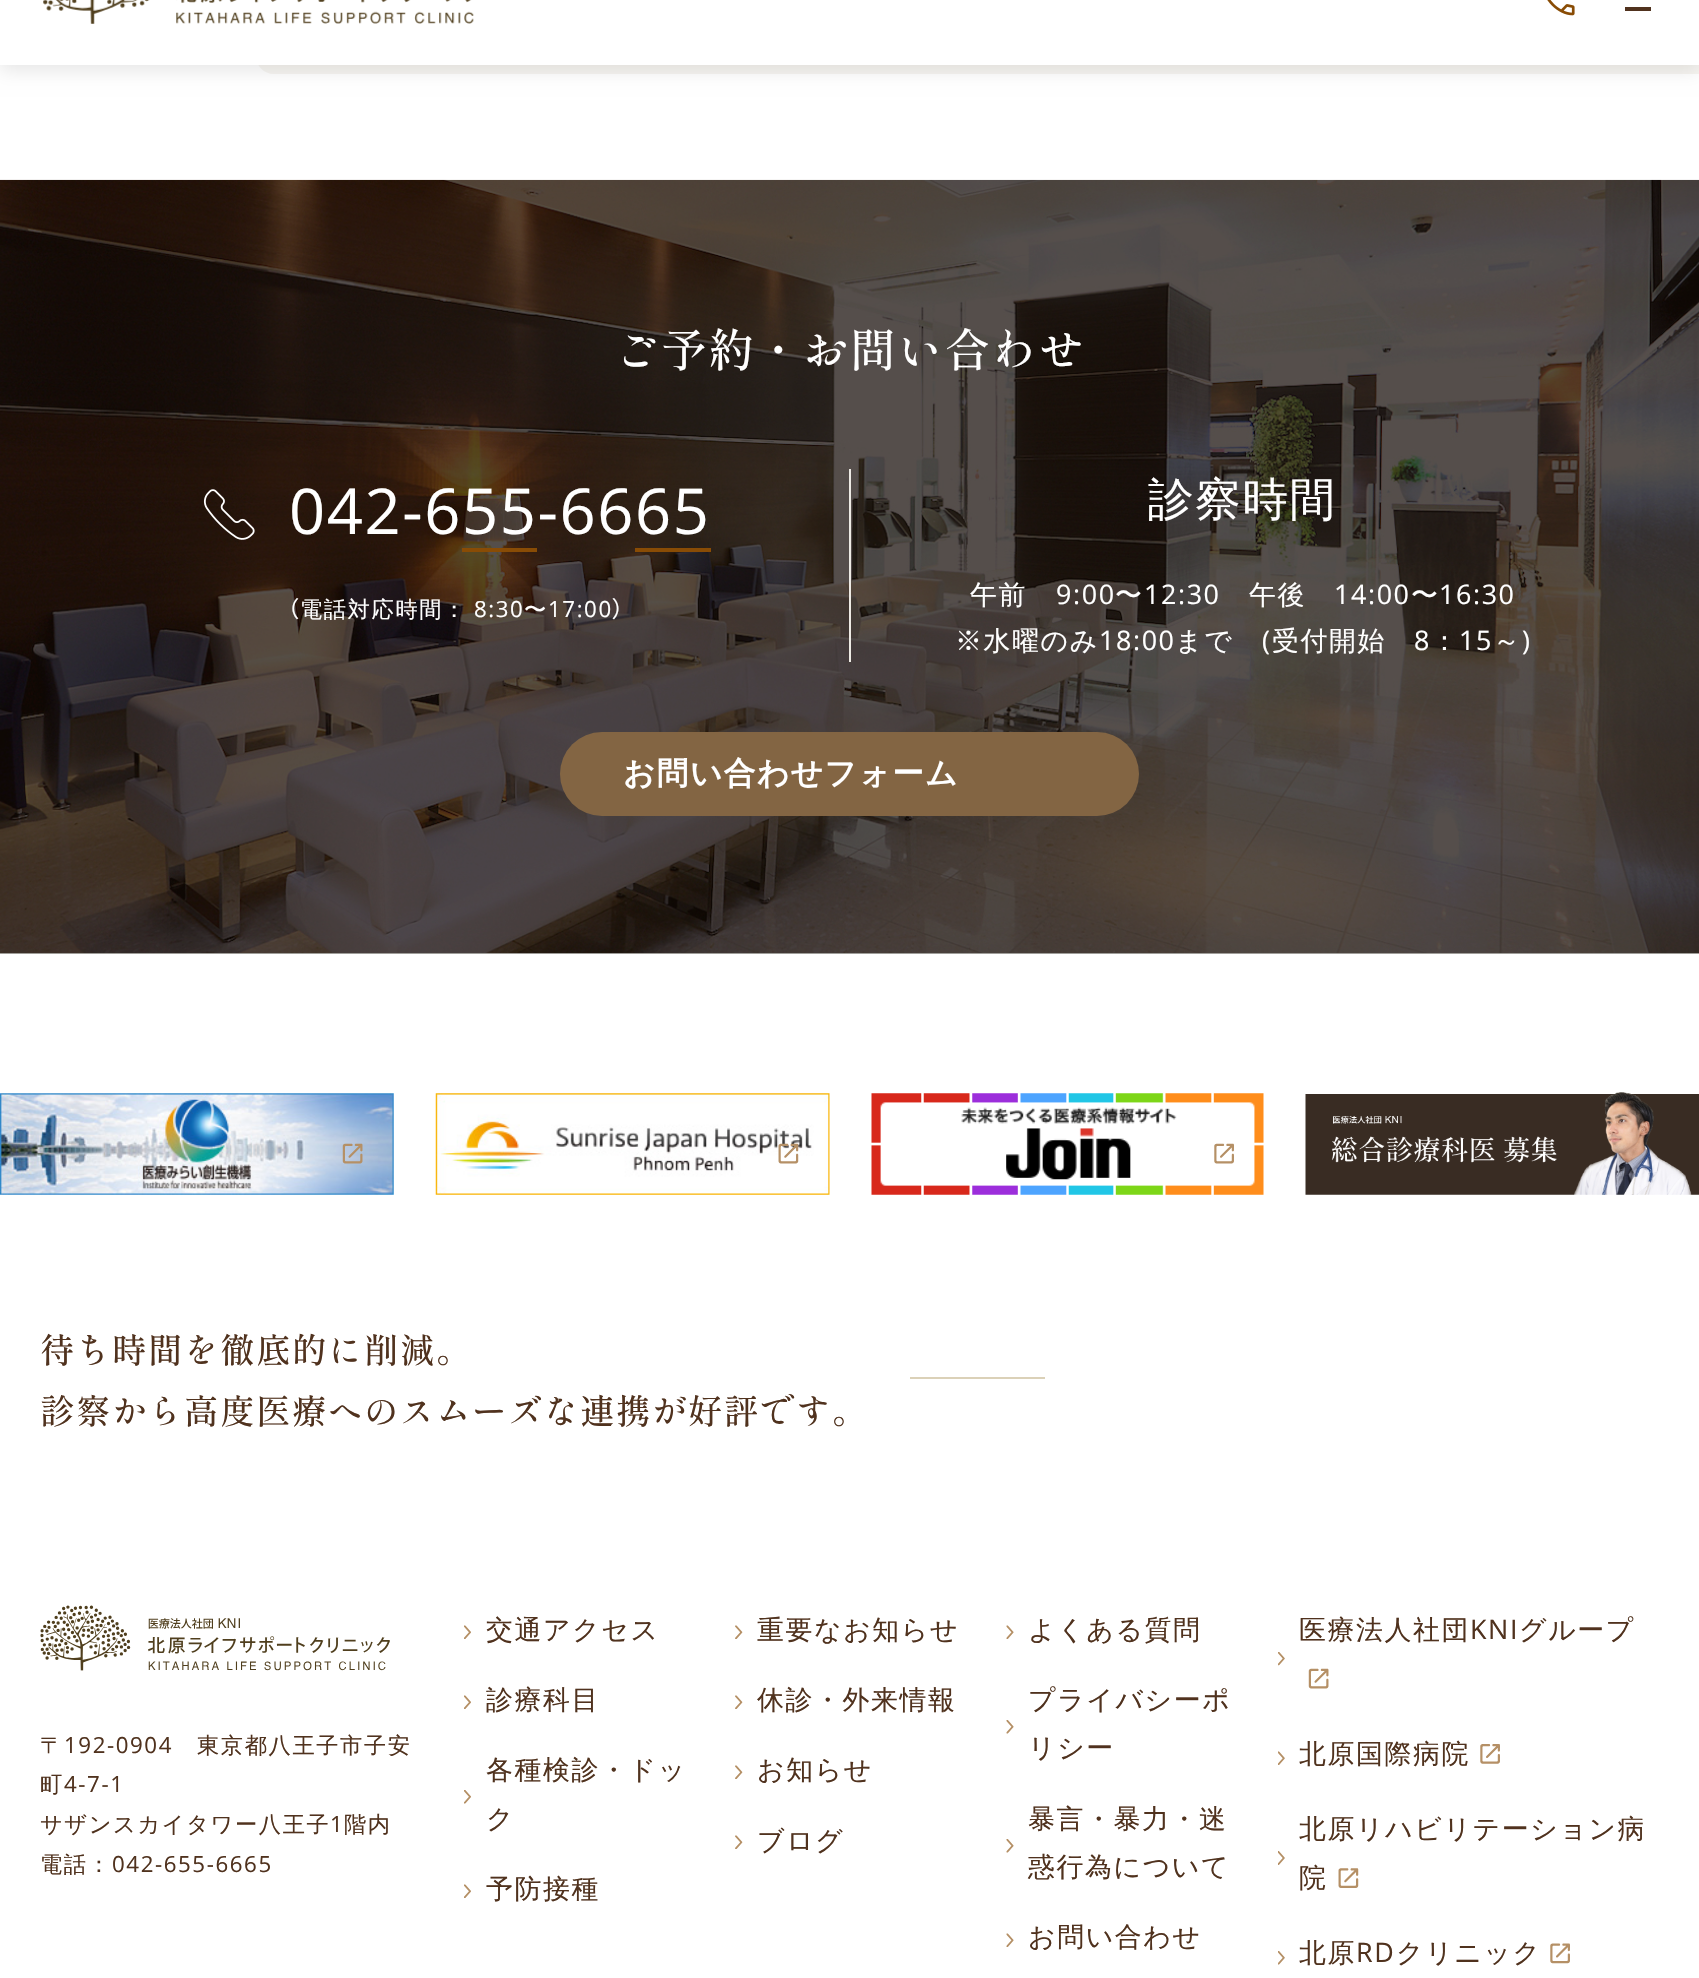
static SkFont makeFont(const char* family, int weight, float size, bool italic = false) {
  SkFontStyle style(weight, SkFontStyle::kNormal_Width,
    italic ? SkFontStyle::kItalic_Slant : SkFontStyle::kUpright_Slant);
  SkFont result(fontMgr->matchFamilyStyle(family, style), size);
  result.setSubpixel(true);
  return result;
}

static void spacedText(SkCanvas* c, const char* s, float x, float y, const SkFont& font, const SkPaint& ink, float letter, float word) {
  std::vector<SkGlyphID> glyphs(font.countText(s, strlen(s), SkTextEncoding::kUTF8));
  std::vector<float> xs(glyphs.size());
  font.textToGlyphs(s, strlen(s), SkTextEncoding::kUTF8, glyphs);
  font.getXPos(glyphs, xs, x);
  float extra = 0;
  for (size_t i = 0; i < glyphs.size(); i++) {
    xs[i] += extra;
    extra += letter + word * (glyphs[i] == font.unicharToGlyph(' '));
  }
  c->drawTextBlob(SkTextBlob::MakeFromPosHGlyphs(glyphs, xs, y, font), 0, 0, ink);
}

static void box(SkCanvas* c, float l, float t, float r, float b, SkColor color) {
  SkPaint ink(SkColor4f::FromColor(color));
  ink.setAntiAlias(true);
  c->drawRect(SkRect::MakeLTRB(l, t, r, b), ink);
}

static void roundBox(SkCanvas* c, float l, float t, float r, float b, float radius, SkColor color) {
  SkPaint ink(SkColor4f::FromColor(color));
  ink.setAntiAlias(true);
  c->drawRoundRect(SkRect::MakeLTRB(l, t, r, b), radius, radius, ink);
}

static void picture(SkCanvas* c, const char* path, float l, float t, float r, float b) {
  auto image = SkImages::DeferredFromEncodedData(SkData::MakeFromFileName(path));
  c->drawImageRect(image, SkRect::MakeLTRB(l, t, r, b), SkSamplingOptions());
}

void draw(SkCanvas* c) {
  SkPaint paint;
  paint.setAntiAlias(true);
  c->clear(0xffffffff);
  paint.setColor(0xfff7f5f1);
  c->drawPath(SkPathBuilder().moveTo(274, -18).lineTo(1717, -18).lineTo(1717, 74).lineTo(274, 74).cubicTo(264, 74, 256, 66, 256, 56).lineTo(256, 0).cubicTo(256, -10, 264, -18, 274, -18).close().detach(), paint);
  paint.setColor(0x1a000000);
  paint.setMaskFilter(SkMaskFilter::MakeBlur(kNormal_SkBlurStyle, 9));
  c->drawRect(SkRect::MakeLTRB(0, -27, 1699, 70), paint);
  paint.setMaskFilter(nullptr);
  box(c, 0, 0, 1699, 65, 0xffffffff);
  picture(c, "img_01.png", 43, 0, 474, 24);
  picture(c, "img_02.png", 1547, 0, 1575, 16);
  box(c, 1625, 7, 1651, 11, 0xff50321e);
  box(c, 0, 953, 1699, 954, 0xffa6a4a0);
  picture(c, "img_03.png", 0, 179, 1699, 954);
  SkFont face1 = makeFont("Shippori Mincho", 500, 45.6f);
  paint.setColor(0xffffffff);
  spacedText(c, "ご予約・お問い合わせ", 614, 367, face1, paint, 1.6f, 0);
  picture(c, "img_04.png", 203, 489, 255, 540);
  SkFont face2 = makeFont("Open Sans", 400, 63.25f);
  spacedText(c, "042-655-6665", 289, 534, face2, paint, 1.6f, 0);
  box(c, 462, 548, 537, 552, 0xff894c05);
  box(c, 635, 548, 711, 552, 0xff894c05);
  SkFont face3 = makeFont("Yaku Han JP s", 400, 22.25f);
  spacedText(c, "（", 288, 617, face3, paint, 1.6f, 0);
  SkFont face4 = makeFont("WenQuanYi Zen Hei", 500, 22.25f);
  spacedText(c, "電話対応時間：", 300, 617, face4, paint, 1.6f, 0);
  SkFont face5 = makeFont("Open Sans", 400, 22.25f);
  spacedText(c, "8:30", 474, 617, face5, paint, 1.6f, 0);
  spacedText(c, "〜", 524, 617, face4, paint, 1.6f, 0);
  spacedText(c, "17:00", 548, 617, face5, paint, 1.6f, 0);
  spacedText(c, "）", 612, 617, face3, paint, 1.6f, 0);
  box(c, 849, 469, 851, 662, 0xffedeae4);
  SkFont face6 = makeFont("WenQuanYi Zen Hei", 500, 45.6f);
  spacedText(c, "診察時間", 1148, 515, face6, paint, 1.6f, 0);
  SkFont face7 = makeFont("WenQuanYi Zen Hei", 500, 26.9f);
  spacedText(c, "午前", 970, 604, face7, paint, 1.6f, 0);
  SkFont face8 = makeFont("Open Sans", 400, 26.9f);
  spacedText(c, "9:00", 1056, 604, face8, paint, 1.6f, 0);
  spacedText(c, "〜", 1115, 604, face7, paint, 1.6f, 0);
  spacedText(c, "12:30", 1144, 604, face8, paint, 1.6f, 0);
  spacedText(c, "午後", 1249, 604, face7, paint, 1.6f, 0);
  spacedText(c, "14:00", 1334, 604, face8, paint, 1.6f, 0);
  spacedText(c, "〜", 1411, 604, face7, paint, 1.6f, 0);
  spacedText(c, "16:30", 1439, 604, face8, paint, 1.6f, 0);
  spacedText(c, "※水曜のみ", 955, 650, face7, paint, 1.6f, 0);
  spacedText(c, "18:00", 1099, 650, face8, paint, 1.6f, 0);
  spacedText(c, "まで", 1175, 650, face7, paint, 1.6f, 0);
  spacedText(c, "(", 1262, 650, face8, paint, 1.6f, 0);
  spacedText(c, "受付開始", 1272, 650, face7, paint, 1.6f, 0);
  spacedText(c, "8", 1414, 650, face8, paint, 1.6f, 0);
  spacedText(c, "：", 1431, 650, face7, paint, 1.6f, 0);
  spacedText(c, "15", 1459, 650, face8, paint, 1.6f, 0);
  spacedText(c, "～", 1493, 650, face7, paint, 1.6f, 0);
  spacedText(c, ")", 1522, 650, face8, paint, 1.6f, 0);
  roundBox(c, 560, 732, 1139, 816, 42, 0xff836543);
  SkFont face9 = makeFont("WenQuanYi Zen Hei", 700, 31.5f);
  spacedText(c, "お問い合わせフォーム", 623, 784, face9, paint, 1.6f, 0);
  picture(c, "img_05.png", 0, 1093, 394, 1195);
  picture(c, "img_06.png", 342, 1143, 363, 1164);
  picture(c, "img_07.png", 435, 1093, 830, 1195);
  picture(c, "img_08.png", 778, 1143, 799, 1164);
  picture(c, "img_09.png", 871, 1093, 1264, 1195);
  picture(c, "img_10.png", 1214, 1143, 1234, 1164);
  picture(c, "img_11.png", 1305, 1092, 1699, 1195);
  SkFont face10 = makeFont("Shippori Mincho", 500, 34.4f);
  paint.setColor(0xff50321e);
  spacedText(c, "待ち時間を徹底的に削減。", 40, 1363, face10, paint, 1.6f, 0);
  spacedText(c, "診察から高度医療へのスムーズな連携が好評です。", 40, 1424, face10, paint, 1.6f, 0);
  box(c, 910, 1377, 1045, 1379, 0xffdbd1b8);
  picture(c, "img_12.png", 40, 1605, 390, 1671);
  spacedText(c, "〒", 40, 1753, face4, paint, 1.6f, 0);
  spacedText(c, "192-0904", 64, 1753, face5, paint, 1.6f, 0);
  spacedText(c, "東京都八王子市子安", 197, 1753, face4, paint, 1.6f, 0);
  spacedText(c, "町", 40, 1792, face4, paint, 1.6f, 0);
  spacedText(c, "4-7-1", 64, 1792, face5, paint, 1.6f, 0);
  spacedText(c, "サザンスカイタワー八王子", 40, 1832, face4, paint, 1.6f, 0);
  spacedText(c, "1", 330, 1832, face5, paint, 1.6f, 0);
  spacedText(c, "階内", 344, 1832, face4, paint, 1.6f, 0);
  spacedText(c, "電話：", 40, 1872, face4, paint, 1.6f, 0);
  spacedText(c, "042-655-6665", 112, 1872, face5, paint, 1.6f, 0);
  picture(c, "img_13.png", 464, 1625, 471, 1639);
  spacedText(c, "交通アクセス", 486, 1639, face7, paint, 1.6f, 0);
  picture(c, "img_13.png", 464, 1695, 471, 1709);
  spacedText(c, "診療科目", 486, 1709, face7, paint, 1.6f, 0);
  picture(c, "img_14.png", 464, 1790, 471, 1804);
  spacedText(c, "各種検診・ドッ", 486, 1779, face7, paint, 1.6f, 0);
  spacedText(c, "ク", 486, 1828, face7, paint, 1.6f, 0);
  picture(c, "img_13.png", 464, 1884, 471, 1898);
  spacedText(c, "予防接種", 486, 1898, face7, paint, 1.6f, 0);
  picture(c, "img_15.png", 735, 1625, 743, 1639);
  spacedText(c, "重要なお知らせ", 757, 1639, face7, paint, 1.6f, 0);
  picture(c, "img_15.png", 735, 1695, 743, 1709);
  spacedText(c, "休診・外来情報", 757, 1709, face7, paint, 1.6f, 0);
  picture(c, "img_16.png", 735, 1765, 743, 1779);
  spacedText(c, "お知らせ", 757, 1779, face7, paint, 1.6f, 0);
  picture(c, "img_15.png", 735, 1835, 743, 1849);
  spacedText(c, "ブログ", 757, 1850, face7, paint, 1.6f, 0);
  picture(c, "img_17.png", 1006, 1625, 1014, 1639);
  spacedText(c, "よくある質問", 1028, 1639, face7, paint, 1.6f, 0);
  picture(c, "img_18.png", 1006, 1720, 1014, 1734);
  spacedText(c, "プライバシーポ", 1028, 1709, face7, paint, 1.6f, 0);
  spacedText(c, "リシー", 1028, 1757, face7, paint, 1.6f, 0);
  picture(c, "img_18.png", 1006, 1839, 1014, 1853);
  spacedText(c, "暴言・暴力・迷", 1028, 1828, face7, paint, 1.6f, 0);
  spacedText(c, "惑行為について", 1028, 1876, face7, paint, 1.6f, 0);
  picture(c, "img_17.png", 1006, 1933, 1014, 1947);
  spacedText(c, "お問い合わせ", 1028, 1946, face7, paint, 1.6f, 0);
  spacedText(c, "医療法人社団", 1299, 1639, face7, paint, 1.6f, 0);
  spacedText(c, "KNI", 1470, 1639, face8, paint, 1.6f, 0);
  spacedText(c, "グループ", 1519, 1639, face7, paint, 1.6f, 0);
  picture(c, "img_19.png", 1308, 1668, 1329, 1689);
  picture(c, "img_20.png", 1278, 1652, 1285, 1666);
  picture(c, "img_21.png", 1278, 1751, 1285, 1765);
  spacedText(c, "北原国際病院", 1299, 1763, face7, paint, 1.6f, 0);
  picture(c, "img_22.png", 1480, 1744, 1500, 1764);
  picture(c, "img_23.png", 1278, 1851, 1285, 1865);
  spacedText(c, "北原リハビリテーション病", 1299, 1838, face7, paint, 1.6f, 0);
  spacedText(c, "院", 1299, 1887, face7, paint, 1.6f, 0);
  picture(c, "img_24.png", 1338, 1868, 1359, 1888);
  picture(c, "img_25.png", 1278, 1951, 1285, 1965);
  spacedText(c, "北原", 1299, 1962, face7, paint, 1.6f, 0);
  spacedText(c, "RD", 1356, 1962, face8, paint, 1.6f, 0);
  spacedText(c, "クリニック", 1396, 1962, face7, paint, 1.6f, 0);
  picture(c, "img_26.png", 1550, 1943, 1570, 1964);
}
